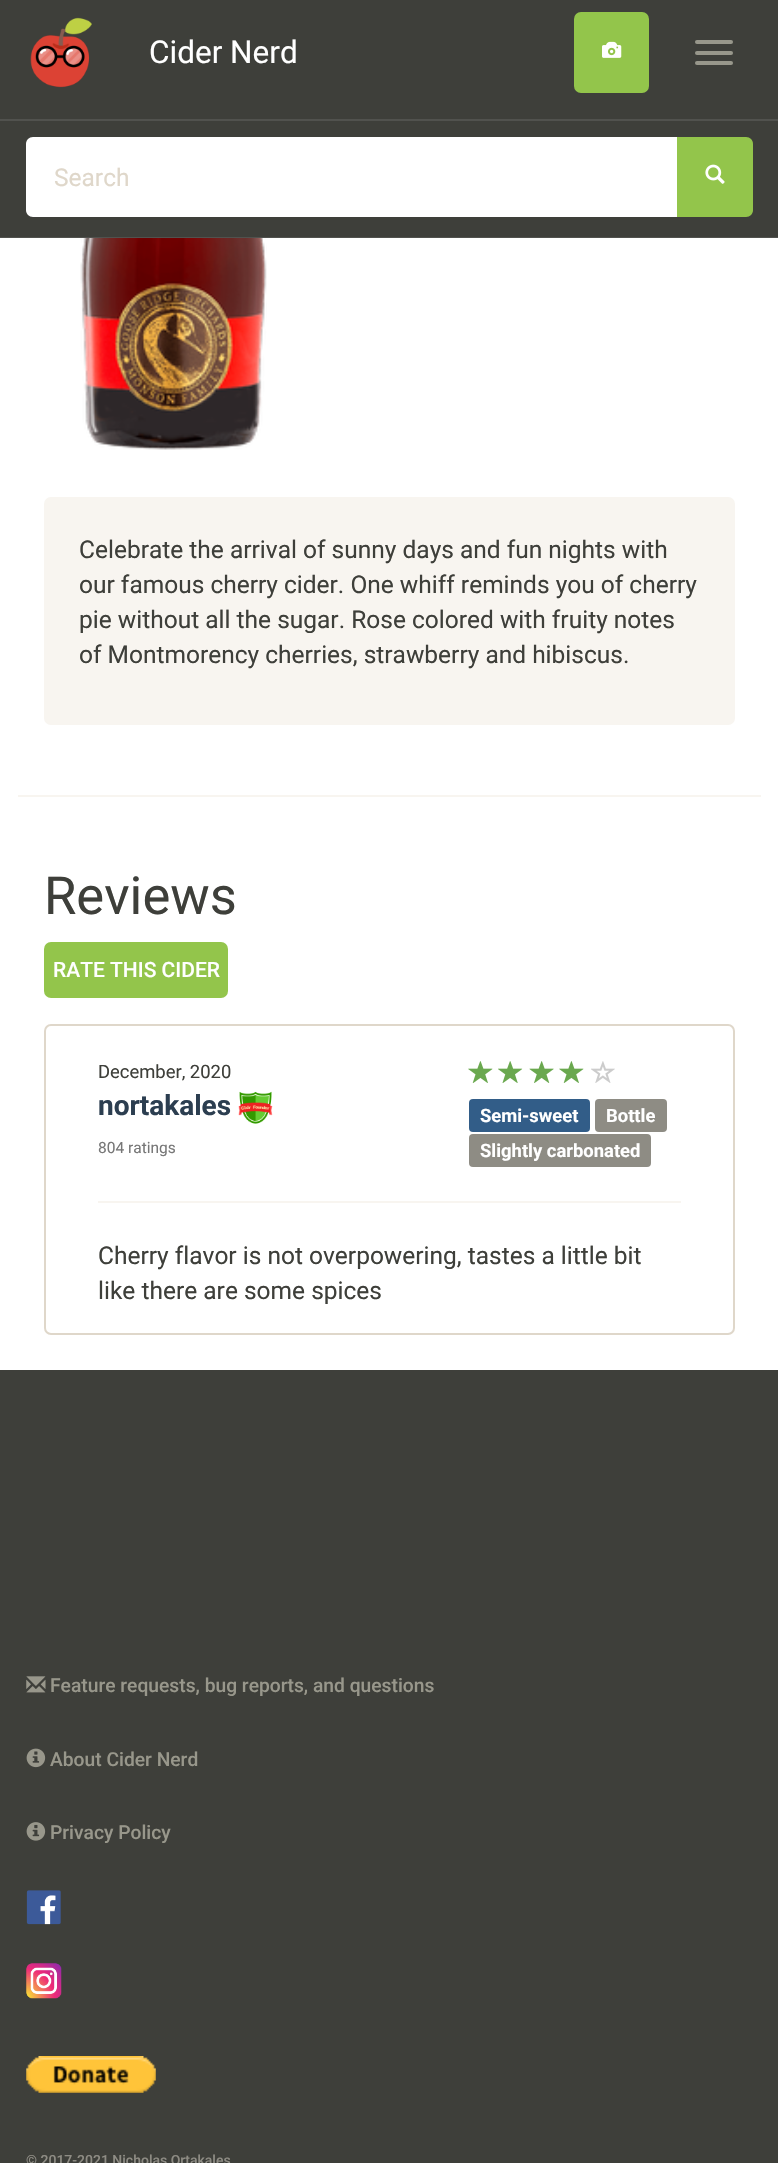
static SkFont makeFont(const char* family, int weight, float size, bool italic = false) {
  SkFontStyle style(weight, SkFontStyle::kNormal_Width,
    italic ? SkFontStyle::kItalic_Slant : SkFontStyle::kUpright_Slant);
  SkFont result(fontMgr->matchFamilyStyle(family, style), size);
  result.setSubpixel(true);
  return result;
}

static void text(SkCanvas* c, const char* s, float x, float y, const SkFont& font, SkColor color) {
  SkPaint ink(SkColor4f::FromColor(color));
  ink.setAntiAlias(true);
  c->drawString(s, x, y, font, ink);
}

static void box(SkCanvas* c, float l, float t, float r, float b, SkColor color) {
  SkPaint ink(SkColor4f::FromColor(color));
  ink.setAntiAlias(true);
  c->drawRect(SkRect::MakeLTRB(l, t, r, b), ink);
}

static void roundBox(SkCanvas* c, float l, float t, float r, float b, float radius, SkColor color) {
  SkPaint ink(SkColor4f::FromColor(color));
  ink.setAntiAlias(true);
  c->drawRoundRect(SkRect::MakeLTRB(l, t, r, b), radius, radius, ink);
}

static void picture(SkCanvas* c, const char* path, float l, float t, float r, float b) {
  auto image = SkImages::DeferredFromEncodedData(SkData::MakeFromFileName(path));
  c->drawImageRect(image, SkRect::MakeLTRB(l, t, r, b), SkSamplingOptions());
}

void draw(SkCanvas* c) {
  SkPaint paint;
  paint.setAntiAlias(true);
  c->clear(0xff3e3f3a);
  picture(c, "img_01.png", 30, 17, 92, 88);
  SkFont face1 = makeFont("Roboto", 400, 31.5f);
  text(c, "Cider Nerd", 149, 63, face1, 0xffffffff);
  roundBox(c, 574, 12, 649, 93, 7, 0xff93c54b);
  picture(c, "img_02.png", 602, 41, 622, 58);
  roundBox(c, 695, 40, 733, 44, 2, 0xff98978b);
  roundBox(c, 695, 51, 733, 55, 2, 0xff98978b);
  roundBox(c, 695, 61, 733, 65, 2, 0xff98978b);
  paint.setColor(0xff51524e);
  c->drawPath(SkPathBuilder().moveTo(0, 236).lineTo(0, 238).lineTo(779, 238).lineTo(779, 119).lineTo(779, 236).close().detach(), paint);
  box(c, 0, 119, 778, 121, 0xff51524e);
  box(c, 0, 236, 778, 237, 0xff3e3f3a);
  paint.setColor(0xffffffff);
  c->drawPath(SkPathBuilder().moveTo(33, 137).lineTo(679, 137).lineTo(679, 217).lineTo(33, 217).cubicTo(29, 217, 26, 214, 26, 210).lineTo(26, 144).cubicTo(26, 140, 29, 137, 33, 137).close().detach(), paint);
  SkFont face2 = makeFont("Roboto", 400, 24.5f);
  text(c, "Search", 54, 186, face2, 0xffdfd7ca);
  paint.setColor(0xff93c54b);
  c->drawPath(SkPathBuilder().moveTo(677, 137).lineTo(746, 137).cubicTo(750, 137, 753, 140, 753, 144).lineTo(753, 210).cubicTo(753, 214, 750, 217, 746, 217).lineTo(677, 217).close().detach(), paint);
  picture(c, "img_03.png", 705, 164, 725, 184);
  box(c, 0, 238, 778, 1370, 0xffffffff);
  picture(c, "img_04.png", 80, 238, 267, 450);
  roundBox(c, 44, 497, 735, 725, 7, 0xfff8f5f0);
  text(c, "Celebrate the arrival of sunny days and fun nights with", 79, 558, face2, 0xff3e3f3a);
  text(c, "our famous cherry cider. One whiff reminds you of cherry", 79, 593, face2, 0xff3e3f3a);
  text(c, "pie without all the sugar. Rose colored with fruity notes", 79, 628, face2, 0xff3e3f3a);
  text(c, "of Montmorency cherries, strawberry and hibiscus.", 79, 663, face2, 0xff3e3f3a);
  box(c, 18, 795, 761, 797, 0xfff8f5f0);
  SkFont face3 = makeFont("Roboto", 400, 52.5f);
  text(c, "Reviews", 44, 914, face3, 0xff3e3f3a);
  roundBox(c, 44, 942, 228, 998, 7, 0xff93c54b);
  SkFont face4 = makeFont("Roboto", 500, 21);
  text(c, "RATE THIS CIDER", 53, 977, face4, 0xffffffff);
  paint.setStyle(SkPaint::kStroke_Style);
  paint.setStrokeWidth(2);
  paint.setColor(0xffdfd7ca);
  c->drawRoundRect(SkRect::MakeLTRB(45, 1025, 734, 1334), 6, 6, paint);
  SkFont face5 = makeFont("Roboto", 400, 18.4f);
  text(c, "December, 2020", 98, 1078, face5, 0xff3e3f3a);
  SkFont face6 = makeFont("Roboto", 700, 28);
  text(c, "nortakales", 98, 1115, face6, 0xff2c3e50);
  picture(c, "img_05.png", 238, 1091, 273, 1124);
  SkFont face7 = makeFont("Roboto", 400, 15.5f);
  text(c, "804 ratings", 98, 1153, face7, 0xff777777);
  picture(c, "img_06.png", 468, 1061, 493, 1083);
  picture(c, "img_07.png", 498, 1061, 523, 1083);
  picture(c, "img_08.png", 529, 1061, 554, 1083);
  picture(c, "img_06.png", 559, 1061, 584, 1083);
  picture(c, "img_09.png", 591, 1061, 615, 1083);
  roundBox(c, 469, 1099, 590, 1132, 4, 0xff325d88);
  SkFont face8 = makeFont("Roboto", 700, 18.4f);
  text(c, "Semi-sweet", 480, 1122, face8, 0xffffffff);
  roundBox(c, 595, 1099, 667, 1132, 4, 0xff8e8c84);
  text(c, "Bottle", 606, 1122, face8, 0xffffffff);
  roundBox(c, 469, 1134, 651, 1167, 4, 0xff8e8c84);
  text(c, "Slightly carbonated", 480, 1157, face8, 0xffffffff);
  box(c, 98, 1201, 681, 1203, 0xfff8f5f0);
  text(c, "Cherry flavor is not overpowering, tastes a little bit", 98, 1264, face2, 0xff3e3f3a);
  text(c, "like there are some spices", 98, 1299, face2, 0xff3e3f3a);
  picture(c, "img_10.png", 26, 1676, 46, 1693);
  SkFont face9 = makeFont("Roboto", 500, 19.25f);
  text(c, "Feature requests, bug reports, and questions", 50, 1692, face9, 0xff98978b);
  picture(c, "img_11.png", 26, 1748, 46, 1768);
  text(c, "About Cider Nerd", 50, 1766, face9, 0xff98978b);
  picture(c, "img_12.png", 26, 1822, 46, 1841);
  text(c, "Privacy Policy", 50, 1839, face9, 0xff98978b);
  picture(c, "img_13.png", 26, 1890, 61, 1925);
  picture(c, "img_14.png", 26, 1963, 62, 1999);
  picture(c, "img_15.png", 26, 2056, 156, 2093);
  SkFont face10 = makeFont("Roboto", 500, 14);
  text(c, "© 2017-2021 Nicholas Ortakales", 26, 2165, face10, 0xff8e8c84);
}
